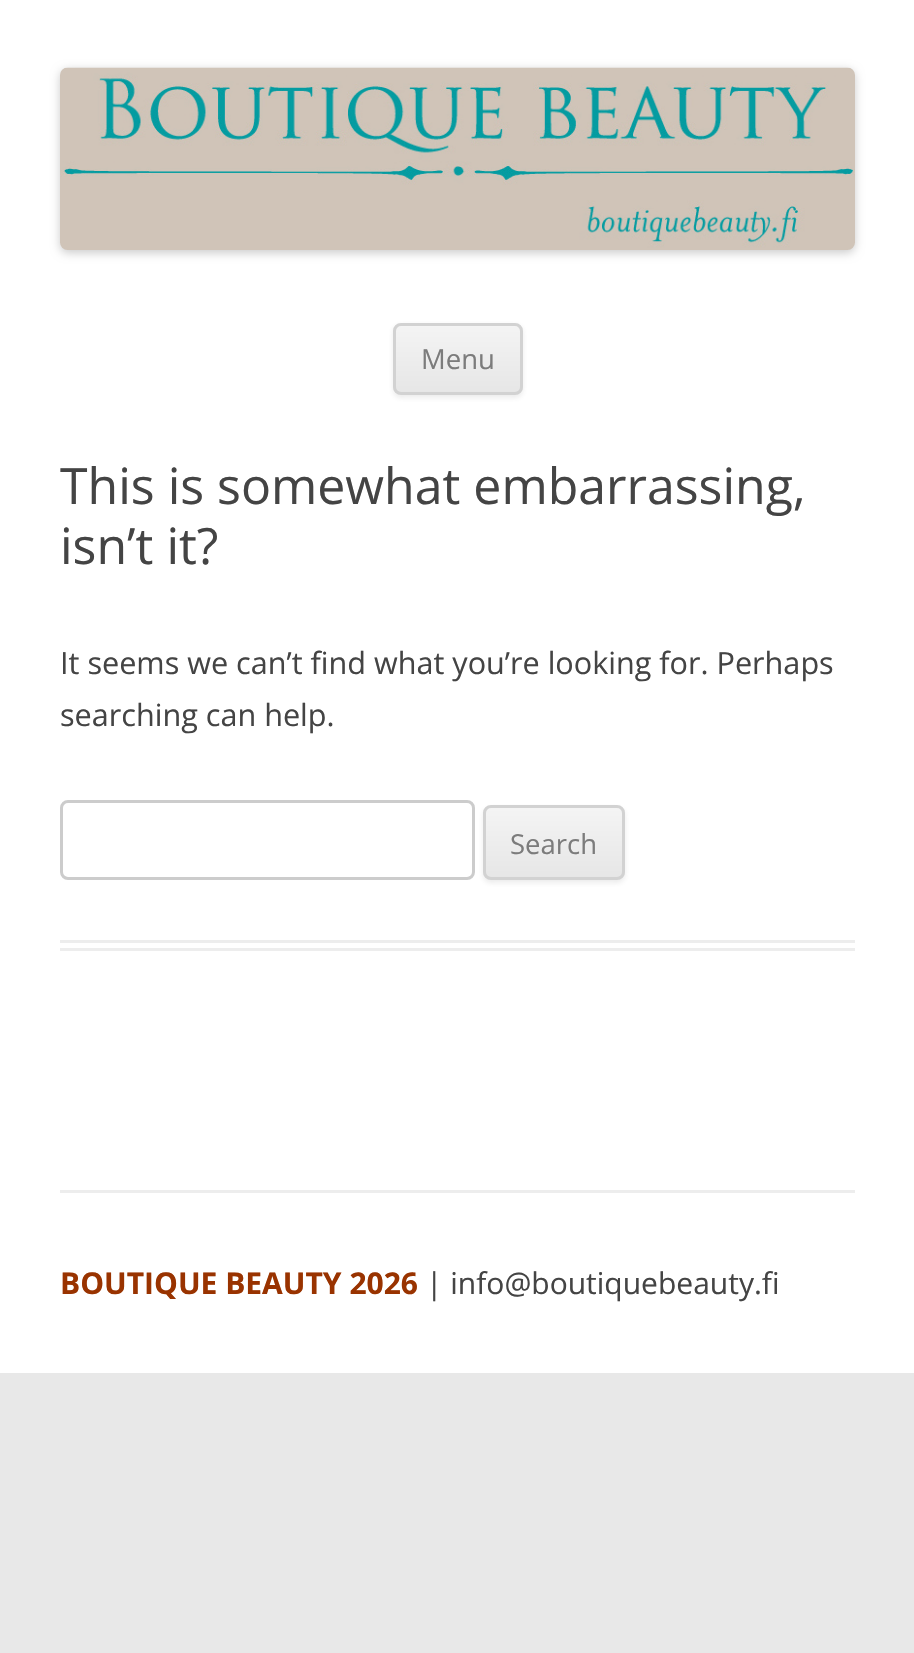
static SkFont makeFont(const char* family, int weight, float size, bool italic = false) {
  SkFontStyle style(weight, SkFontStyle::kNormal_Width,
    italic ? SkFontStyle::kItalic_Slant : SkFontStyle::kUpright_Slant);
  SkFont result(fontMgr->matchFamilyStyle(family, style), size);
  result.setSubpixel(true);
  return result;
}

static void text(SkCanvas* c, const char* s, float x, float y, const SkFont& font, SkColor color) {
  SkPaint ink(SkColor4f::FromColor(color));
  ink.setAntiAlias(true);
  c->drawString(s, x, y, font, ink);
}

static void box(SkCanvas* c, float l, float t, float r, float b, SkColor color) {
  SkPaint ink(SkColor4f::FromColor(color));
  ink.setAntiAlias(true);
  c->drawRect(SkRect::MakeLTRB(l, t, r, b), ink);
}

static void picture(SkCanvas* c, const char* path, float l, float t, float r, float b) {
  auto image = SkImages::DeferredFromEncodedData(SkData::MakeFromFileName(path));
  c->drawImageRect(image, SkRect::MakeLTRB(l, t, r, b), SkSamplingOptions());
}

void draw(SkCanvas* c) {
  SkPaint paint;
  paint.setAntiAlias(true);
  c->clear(0xffe8e8e8);
  box(c, 0, 0, 914, 1373, 0xffffffff);
  paint.setColor(0x33000000);
  paint.setMaskFilter(SkMaskFilter::MakeBlur(kNormal_SkBlurStyle, 5));
  c->drawRoundRect(SkRect::MakeLTRB(60, 70, 855, 253), 8, 8, paint);
  paint.setMaskFilter(nullptr);
  picture(c, "img_01.png", 60, 67, 855, 250);
  paint.setColor(0x1a404040);
  paint.setMaskFilter(SkMaskFilter::MakeBlur(kNormal_SkBlurStyle, 2.5f));
  c->drawRoundRect(SkRect::MakeLTRB(393, 325, 523, 398), 8, 8, paint);
  paint.setMaskFilter(nullptr);
  c->save();
  c->clipPath(SkPathBuilder().moveTo(401, 323).lineTo(515, 323).cubicTo(519.5f, 323, 523, 326.5f, 523, 331).lineTo(523, 387).cubicTo(523, 391.5f, 519.5f, 395, 515, 395).lineTo(401, 395).cubicTo(396.5f, 395, 393, 391.5f, 393, 387).lineTo(393, 331).cubicTo(393, 326.5f, 396.5f, 323, 401, 323).close().detach(), true);
  {
    const SkColor colors[] = {0xfff4f4f4, 0xffe6e6e6};
    const float stops[] = {0, 1};
    const SkPoint ends[] = {{458, 325}, {458, 393}};
    paint.setShader(SkGradientShader::MakeLinear(ends, colors, stops, 2, SkTileMode::kClamp));
    paint.setAlpha(255);
  }
  c->drawRect(SkRect::MakeLTRB(393, 325, 523, 393), paint);
  c->restore();
  paint.setStyle(SkPaint::kStroke_Style);
  paint.setStrokeWidth(3);
  paint.setShader(nullptr);
  paint.setColor(0xffd2d2d2);
  c->drawRoundRect(SkRect::MakeLTRB(394.5f, 324.5f, 521.5f, 393.5f), 6.5f, 6.5f, paint);
  SkFont face1 = makeFont("Open Sans", 400, 27.5f);
  text(c, "Menu", 421, 369, face1, 0xff7c7c7c);
  box(c, 60, 940, 855, 943, 0xffededed);
  box(c, 60, 948, 855, 951, 0xffededed);
  SkFont face2 = makeFont("Open Sans", 400, 50);
  text(c, "This is somewhat embarrassing,", 60, 504, face2, 0xff444444);
  text(c, "isn’t it?", 60, 564, face2, 0xff444444);
  SkFont face3 = makeFont("Open Sans", 400, 30.6f);
  text(c, "It seems we can’t find what you’re looking for. Perhaps", 60, 674, face3, 0xff444444);
  text(c, "searching can help.", 60, 726, face3, 0xff444444);
  paint.setColor(0xffcccccc);
  c->drawRoundRect(SkRect::MakeLTRB(61.5f, 801.5f, 473.5f, 878.5f), 6.5f, 6.5f, paint);
  paint.setStyle(SkPaint::kFill_Style);
  paint.setColor(0x1a404040);
  paint.setMaskFilter(SkMaskFilter::MakeBlur(kNormal_SkBlurStyle, 2.5f));
  c->drawRoundRect(SkRect::MakeLTRB(483, 808, 625, 883), 8, 8, paint);
  paint.setMaskFilter(nullptr);
  c->save();
  c->clipPath(SkPathBuilder().moveTo(491, 805).lineTo(617, 805).cubicTo(621.5f, 805, 625, 808.5f, 625, 813).lineTo(625, 872).cubicTo(625, 876.5f, 621.5f, 880, 617, 880).lineTo(491, 880).cubicTo(486.5f, 880, 483, 876.5f, 483, 872).lineTo(483, 813).cubicTo(483, 808.5f, 486.5f, 805, 491, 805).close().detach(), true);
  {
    const SkColor colors[] = {0xfff4f4f4, 0xffe6e6e6};
    const float stops[] = {0, 1};
    const SkPoint ends[] = {{554, 808}, {554, 878}};
    paint.setShader(SkGradientShader::MakeLinear(ends, colors, stops, 2, SkTileMode::kClamp));
    paint.setAlpha(255);
  }
  c->drawRect(SkRect::MakeLTRB(483, 808, 625, 878), paint);
  c->restore();
  paint.setStyle(SkPaint::kStroke_Style);
  paint.setShader(nullptr);
  paint.setColor(0xffd2d2d2);
  c->drawRoundRect(SkRect::MakeLTRB(484.5f, 806.5f, 623.5f, 878.5f), 6.5f, 6.5f, paint);
  text(c, "Search", 510, 854, face1, 0xff7c7c7c);
  box(c, 60, 1190, 855, 1193, 0xffededed);
  SkFont face4 = makeFont("Open Sans", 700, 30);
  text(c, "BOUTIQUE BEAUTY 2026", 60, 1294, face4, 0xff993300);
  SkFont face5 = makeFont("Open Sans", 400, 30);
  text(c, "| info@boutiquebeauty.fi", 426, 1294, face5, 0xff444444);
}
